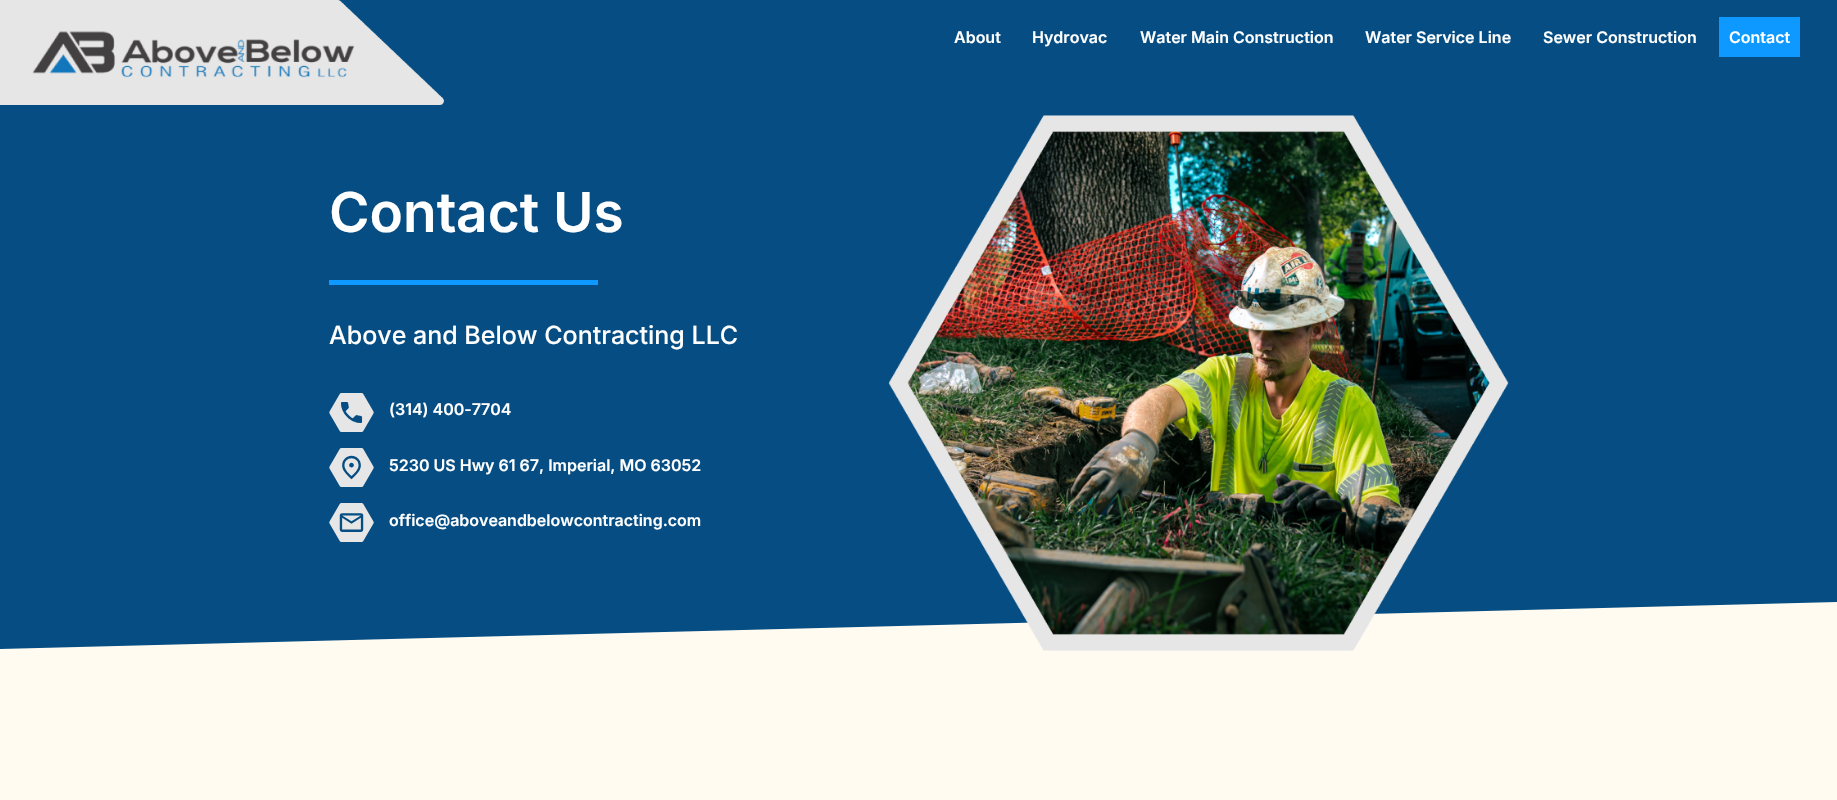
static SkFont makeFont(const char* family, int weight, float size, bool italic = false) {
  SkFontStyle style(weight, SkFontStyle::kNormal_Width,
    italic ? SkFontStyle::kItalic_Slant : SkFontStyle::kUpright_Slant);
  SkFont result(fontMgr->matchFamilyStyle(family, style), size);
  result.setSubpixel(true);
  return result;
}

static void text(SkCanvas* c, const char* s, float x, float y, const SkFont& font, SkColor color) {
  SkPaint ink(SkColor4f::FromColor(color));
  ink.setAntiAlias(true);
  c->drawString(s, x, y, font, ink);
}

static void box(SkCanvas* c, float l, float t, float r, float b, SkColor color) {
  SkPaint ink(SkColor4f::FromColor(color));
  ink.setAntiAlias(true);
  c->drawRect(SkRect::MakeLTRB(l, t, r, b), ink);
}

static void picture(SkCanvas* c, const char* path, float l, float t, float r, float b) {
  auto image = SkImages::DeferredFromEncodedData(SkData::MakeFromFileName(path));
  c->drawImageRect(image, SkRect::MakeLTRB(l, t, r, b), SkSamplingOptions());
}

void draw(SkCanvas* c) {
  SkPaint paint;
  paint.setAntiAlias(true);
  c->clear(0xfffffbf1);
  box(c, 0, 0, 1837, 649, 0xff054d82);
  picture(c, "img_01.png", 0, 0, 444, 105);
  SkFont face1 = makeFont("Inter", 600, 16);
  text(c, "About", 954, 43, face1, 0xffffffff);
  text(c, "Hydrovac", 1032, 43, face1, 0xffffffff);
  text(c, "Water Main Construction", 1140, 43, face1, 0xffffffff);
  text(c, "Water Service Line", 1365, 43, face1, 0xffffffff);
  text(c, "Sewer Construction", 1543, 43, face1, 0xffffffff);
  box(c, 1719, 17, 1800, 57, 0xff0d99ff);
  text(c, "Contact", 1729, 43, face1, 0xffffffff);
  SkFont face2 = makeFont("Inter", 600, 55);
  text(c, "Contact Us", 329, 232, face2, 0xffffffff);
  box(c, 329, 280, 598, 285, 0xff0d99ff);
  SkFont face3 = makeFont("Inter", 500, 25);
  text(c, "Above and Below Contracting LLC", 329, 344, face3, 0xffffffff);
  picture(c, "img_02.png", 329, 393, 374, 432);
  text(c, "(314) 400-7704", 389, 415, face1, 0xffffffff);
  picture(c, "img_03.png", 329, 448, 374, 487);
  text(c, "5230 US Hwy 61 67, Imperial, MO 63052", 389, 471, face1, 0xffffffff);
  picture(c, "img_04.png", 329, 503, 374, 542);
  text(c, "office@aboveandbelowcontracting.com", 389, 526, face1, 0xffffffff);
  paint.setColor(0xfffffbf1);
  c->drawPath(SkPathBuilder().moveTo(0, 649).lineTo(0, 652).lineTo(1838, 652).lineTo(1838, 602).close().detach(), paint);
  picture(c, "img_05.png", 888, 115, 1509, 651);
}
